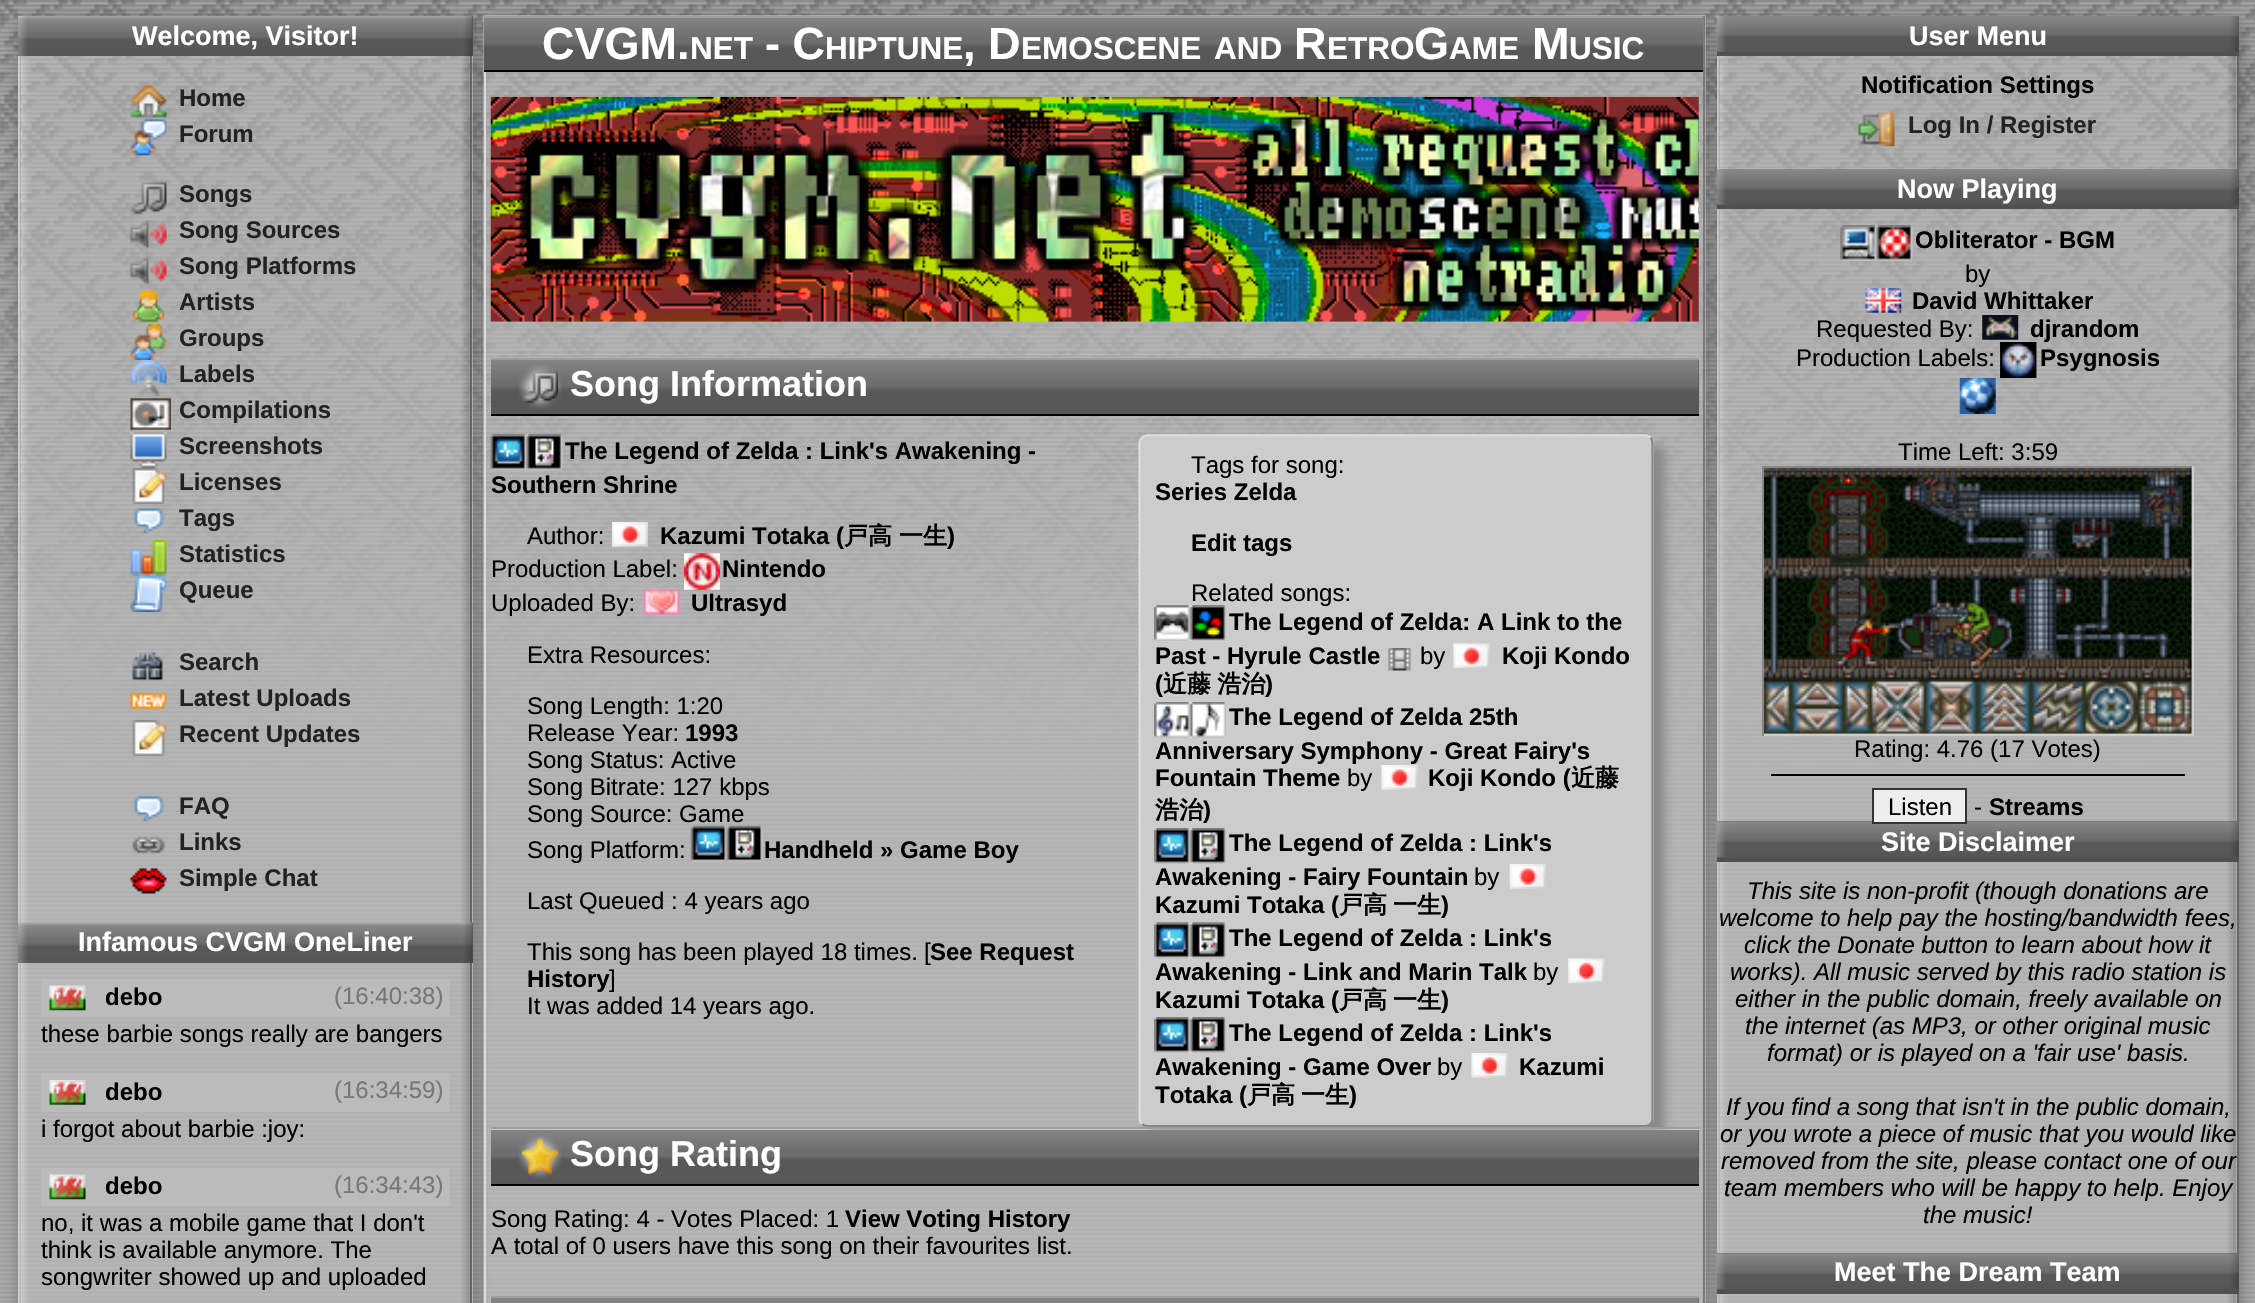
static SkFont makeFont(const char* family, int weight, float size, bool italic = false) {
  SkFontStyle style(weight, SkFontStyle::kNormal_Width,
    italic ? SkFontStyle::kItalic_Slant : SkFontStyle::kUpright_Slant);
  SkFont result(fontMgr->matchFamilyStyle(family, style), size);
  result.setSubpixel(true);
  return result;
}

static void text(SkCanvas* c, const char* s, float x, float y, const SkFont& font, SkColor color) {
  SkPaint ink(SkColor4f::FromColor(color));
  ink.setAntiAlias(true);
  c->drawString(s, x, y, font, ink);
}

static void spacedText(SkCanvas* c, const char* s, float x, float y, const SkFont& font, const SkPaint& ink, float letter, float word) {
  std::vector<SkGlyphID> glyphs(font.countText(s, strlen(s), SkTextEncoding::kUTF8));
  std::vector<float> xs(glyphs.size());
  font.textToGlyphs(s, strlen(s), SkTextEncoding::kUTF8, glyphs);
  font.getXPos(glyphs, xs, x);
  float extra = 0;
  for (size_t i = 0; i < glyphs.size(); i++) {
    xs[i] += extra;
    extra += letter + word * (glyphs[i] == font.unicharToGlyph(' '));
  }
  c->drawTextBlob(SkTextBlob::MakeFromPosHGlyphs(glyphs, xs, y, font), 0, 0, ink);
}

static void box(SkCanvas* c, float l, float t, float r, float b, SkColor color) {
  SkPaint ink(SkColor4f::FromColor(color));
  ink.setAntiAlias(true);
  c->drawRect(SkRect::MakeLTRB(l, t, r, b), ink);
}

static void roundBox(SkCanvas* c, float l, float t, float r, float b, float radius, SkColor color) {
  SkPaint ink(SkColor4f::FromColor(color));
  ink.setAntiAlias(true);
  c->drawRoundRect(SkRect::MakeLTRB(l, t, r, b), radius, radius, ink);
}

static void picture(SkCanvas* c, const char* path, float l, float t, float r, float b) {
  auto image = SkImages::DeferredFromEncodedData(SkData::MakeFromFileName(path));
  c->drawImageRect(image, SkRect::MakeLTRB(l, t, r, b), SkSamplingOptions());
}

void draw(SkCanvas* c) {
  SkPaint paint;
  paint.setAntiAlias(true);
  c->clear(0xffa7a7a7);
  picture(c, "img_01.png", 0, 0, 2255, 1302);
  c->save();
  c->clipPath(SkPathBuilder(SkPathFillType::kEvenOdd).moveTo(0, 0).lineTo(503, 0).lineTo(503, 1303).lineTo(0, 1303).close().moveTo(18, 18).lineTo(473, 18).lineTo(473, 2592).lineTo(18, 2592).close().detach(), true);
  paint.setColor(0x80404040);
  paint.setMaskFilter(SkMaskFilter::MakeBlur(kNormal_SkBlurStyle, 9));
  c->drawRect(SkRect::MakeLTRB(20, 20, 475, 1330), paint);
  paint.setMaskFilter(nullptr);
  c->restore();
  picture(c, "img_02.png", 20, 56, 473, 1303);
  box(c, 470, 56, 472, 1303, 0xff666666);
  box(c, 18, 56, 20, 1303, 0xffcccccc);
  box(c, 18, 16, 473, 56, 0xff505050);
  picture(c, "img_03.png", 18, 15, 473, 57);
  SkFont face1 = makeFont("Liberation Sans", 700, 27);
  text(c, "Welcome, Visitor!", 132, 45, face1, 0xffffffff);
  picture(c, "img_04.png", 130, 83, 167, 118);
  SkFont face2 = makeFont("Liberation Sans", 700, 24);
  text(c, "Home", 179, 106, face2, 0xff222222);
  picture(c, "img_05.png", 130, 119, 167, 156);
  text(c, "Forum", 179, 142, face2, 0xff222222);
  picture(c, "img_06.png", 130, 181, 167, 215);
  text(c, "Songs", 179, 202, face2, 0xff222222);
  picture(c, "img_07.png", 130, 220, 167, 249);
  text(c, "Song Sources", 179, 238, face2, 0xff222222);
  picture(c, "img_08.png", 130, 256, 167, 285);
  text(c, "Song Platforms", 179, 274, face2, 0xff222222);
  picture(c, "img_09.png", 132, 289, 165, 323);
  text(c, "Artists", 179, 310, face2, 0xff222222);
  picture(c, "img_10.png", 130, 324, 167, 360);
  text(c, "Groups", 179, 346, face2, 0xff222222);
  picture(c, "img_11.png", 130, 360, 167, 396);
  text(c, "Labels", 179, 382, face2, 0xff222222);
  picture(c, "img_12.png", 130, 398, 171, 430);
  text(c, "Compilations", 179, 418, face2, 0xff222222);
  picture(c, "img_13.png", 130, 432, 167, 468);
  text(c, "Screenshots", 179, 454, face2, 0xff222222);
  picture(c, "img_14.png", 132, 468, 167, 504);
  text(c, "Licenses", 179, 490, face2, 0xff222222);
  picture(c, "img_15.png", 132, 508, 165, 534);
  text(c, "Tags", 179, 526, face2, 0xff222222);
  picture(c, "img_16.png", 130, 540, 167, 576);
  text(c, "Statistics", 179, 562, face2, 0xff222222);
  picture(c, "img_17.png", 130, 576, 167, 612);
  text(c, "Queue", 179, 598, face2, 0xff222222);
  picture(c, "img_18.png", 132, 652, 163, 681);
  text(c, "Search", 179, 670, face2, 0xff222222);
  picture(c, "img_19.png", 130, 692, 167, 710);
  text(c, "Latest Uploads", 179, 706, face2, 0xff222222);
  picture(c, "img_20.png", 132, 720, 167, 756);
  text(c, "Recent Updates", 179, 742, face2, 0xff222222);
  picture(c, "img_21.png", 132, 796, 165, 822);
  text(c, "FAQ", 179, 814, face2, 0xff222222);
  picture(c, "img_22.png", 132, 836, 165, 854);
  text(c, "Links", 179, 850, face2, 0xff222222);
  picture(c, "img_23.png", 130, 868, 167, 894);
  text(c, "Simple Chat", 179, 886, face2, 0xff222222);
  box(c, 18, 923, 473, 963, 0xff505050);
  picture(c, "img_24.png", 18, 922, 473, 963);
  text(c, "Infamous CVGM OneLiner", 78, 951, face1, 0xffffffff);
  box(c, 41, 979, 450, 1017, 0xffbbbbbb);
  picture(c, "img_25.png", 49, 985, 86, 1011);
  text(c, "debo", 105, 1005, face2, 0xff000000);
  SkFont face3 = makeFont("Liberation Sans", 400, 24);
  text(c, "(16:40:38)", 334, 1004, face3, 0xff777777);
  text(c, "these barbie songs really are bangers", 41, 1042, face3, 0xff000000);
  box(c, 41, 1073, 450, 1112, 0xffbbbbbb);
  picture(c, "img_26.png", 49, 1080, 86, 1105);
  text(c, "debo", 105, 1100, face2, 0xff000000);
  text(c, "(16:34:59)", 334, 1098, face3, 0xff777777);
  text(c, "i forgot about barbie :joy:", 41, 1137, face3, 0xff000000);
  box(c, 41, 1168, 450, 1206, 0xffbbbbbb);
  picture(c, "img_25.png", 49, 1174, 86, 1200);
  text(c, "debo", 105, 1194, face2, 0xff000000);
  text(c, "(16:34:43)", 334, 1193, face3, 0xff777777);
  text(c, "no, it was a mobile game that I don't", 41, 1231, face3, 0xff000000);
  text(c, "think is available anymore. The", 41, 1258, face3, 0xff000000);
  text(c, "songwriter showed up and uploaded", 41, 1285, face3, 0xff000000);
  c->save();
  c->clipPath(SkPathBuilder(SkPathFillType::kEvenOdd).moveTo(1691, 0).lineTo(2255, 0).lineTo(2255, 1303).lineTo(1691, 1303).close().moveTo(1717, 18).lineTo(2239, 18).lineTo(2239, 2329).lineTo(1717, 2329).close().detach(), true);
  paint.setMaskFilter(SkMaskFilter::MakeBlur(kNormal_SkBlurStyle, 9));
  c->drawRect(SkRect::MakeLTRB(1719, 20, 2241, 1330), paint);
  paint.setMaskFilter(nullptr);
  c->restore();
  picture(c, "img_59.png", 1719, 56, 2237, 1303);
  box(c, 1717, 56, 1719, 1303, 0xffcccccc);
  box(c, 1717, 16, 2239, 56, 0xff505050);
  picture(c, "img_60.png", 1716, 15, 2239, 52);
  box(c, 2237, 56, 2239, 1303, 0xff666666);
  box(c, 1717, 169, 2239, 209, 0xff505050);
  picture(c, "img_62.png", 1716, 168, 2239, 205);
  box(c, 1717, 821, 2239, 862, 0xff505050);
  picture(c, "img_71.png", 1716, 821, 2239, 858);
  box(c, 1717, 1253, 2239, 1294, 0xff505050);
  picture(c, "img_72.png", 1716, 1253, 2239, 1290);
  c->save();
  c->clipPath(SkPathBuilder(SkPathFillType::kEvenOdd).moveTo(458, 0).lineTo(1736, 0).lineTo(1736, 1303).lineTo(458, 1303).close().moveTo(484, 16).lineTo(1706, 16).lineTo(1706, 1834).lineTo(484, 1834).close().detach(), true);
  paint.setMaskFilter(SkMaskFilter::MakeBlur(kNormal_SkBlurStyle, 9));
  c->drawRect(SkRect::MakeLTRB(486, 18, 1708, 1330), paint);
  paint.setMaskFilter(nullptr);
  c->restore();
  box(c, 483, 15, 1706, 1303, 0x80c1c1c1);
  box(c, 1703, 16, 1705, 1303, 0xff777777);
  paint.setColor(0xffdddddd);
  c->drawPath(SkPathBuilder().moveTo(484, 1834).lineTo(484, 16).lineTo(486, 16).lineTo(486, 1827).close().detach(), paint);
  box(c, 484, 18, 1703, 70, 0xff505050);
  picture(c, "img_27.png", 483, 15, 1704, 70);
  box(c, 484, 16, 1703, 18, 0xffa29d97);
  box(c, 484, 70, 1703, 72, 0xff000000);
  SkFont face4 = makeFont("Liberation Sans", 700, 45);
  text(c, "CVGM.", 542, 59, face4, 0xffffffff);
  SkFont face5 = makeFont("Liberation Sans", 700, 31.5f);
  text(c, "NET", 690, 59, face5, 0xffffffff);
  text(c, "- C", 765, 59, face4, 0xffffffff);
  text(c, "HIPTUNE", 825, 59, face5, 0xffffffff);
  text(c, ", D", 963, 59, face4, 0xffffffff);
  text(c, "EMOSCENE", 1021, 59, face5, 0xffffffff);
  text(c, "AND", 1214, 59, face5, 0xffffffff);
  text(c, "R", 1294, 59, face4, 0xffffffff);
  text(c, "ETRO", 1327, 59, face5, 0xffffffff);
  text(c, "G", 1414, 59, face4, 0xffffffff);
  text(c, "AME", 1449, 59, face5, 0xffffffff);
  text(c, "M", 1532, 59, face4, 0xffffffff);
  text(c, "USIC", 1569, 59, face5, 0xffffffff);
  picture(c, "img_28.png", 490, 96, 1699, 322);
  box(c, 491, 360, 1699, 414, 0xff505050);
  picture(c, "img_29.png", 490, 357, 1699, 414);
  box(c, 491, 358, 1699, 360, 0xffa29d97);
  box(c, 491, 414, 1699, 416, 0xff000000);
  picture(c, "img_30.png", 518, 365, 562, 410);
  SkFont face6 = makeFont("Liberation Sans", 700, 36);
  text(c, "Song Information", 570, 396, face6, 0xffffffff);
  picture(c, "img_31.png", 522, 371, 558, 404);
  picture(c, "img_32.png", 490, 434, 563, 471);
  picture(c, "img_33.png", 490, 434, 563, 470);
  text(c, "The Legend of Zelda : Link's Awakening -", 565, 459, face2, 0xff000000);
  paint.setColor(0xff888888);
  paint.setMaskFilter(SkMaskFilter::MakeBlur(kNormal_SkBlurStyle, 5.5f));
  c->drawRoundRect(SkRect::MakeLTRB(1150, 446, 1665, 1139), 9, 9, paint);
  paint.setMaskFilter(nullptr);
  roundBox(c, 1139, 434, 1654, 1127, 9, 0xffcccccc);
  paint.setStyle(SkPaint::kStroke_Style);
  paint.setStrokeWidth(2.2f);
  c->drawPath(SkPathBuilder().moveTo(1650.5f, 437.5f).cubicTo(1652, 439, 1652.5f, 441, 1652.5f, 443).lineTo(1652.5f, 1118).cubicTo(1652.5f, 1120.5f, 1652, 1122.5f, 1650.5f, 1124).cubicTo(1649, 1125.5f, 1647, 1126, 1645, 1126).lineTo(1147.5f, 1126).cubicTo(1145.5f, 1126, 1143.5f, 1125.5f, 1142, 1124).detach(), paint);
  paint.setColor(0xffdddddd);
  c->drawPath(SkPathBuilder().moveTo(1142, 1124).cubicTo(1140.5f, 1122.5f, 1139.5f, 1120.5f, 1139.5f, 1118).lineTo(1139.5f, 443).cubicTo(1139.5f, 441, 1140.5f, 439, 1142, 437.5f).cubicTo(1143.5f, 436, 1145.5f, 435.5f, 1147.5f, 435.5f).lineTo(1645, 435.5f).cubicTo(1647, 435.5f, 1649, 436, 1650.5f, 437.5f).detach(), paint);
  text(c, "Tags for song:", 1191, 473, face3, 0xff000000);
  text(c, "Series Zelda", 1155, 500, face2, 0xff000000);
  text(c, "Edit tags", 1191, 551, face2, 0xff000000);
  text(c, "Related songs:", 1191, 601, face3, 0xff000000);
  picture(c, "img_34.png", 1154, 605, 1226, 641);
  picture(c, "img_35.png", 1154, 605, 1225, 641);
  text(c, "The Legend of Zelda: A Link to the", 1229, 630, face2, 0xff000000);
  text(c, "Past - Hyrule Castle", 1155, 664, face2, 0xff000000);
  picture(c, "img_36.png", 1388, 648, 1411, 671);
  text(c, "by", 1420, 664, face3, 0xff000000);
  picture(c, "img_37.png", 1453, 643, 1490, 669);
  text(c, "Koji Kondo", 1502, 664, face2, 0xff000000);
  text(c, "(", 1155, 692, face2, 0xff000000);
  SkFont face7 = makeFont("WenQuanYi Zen Hei", 700, 24);
  paint.setStyle(SkPaint::kFill_Style);
  paint.setColor(0xff000000);
  spacedText(c, "近藤 浩治", 1163, 692, face7, paint, 0, -1);
  text(c, ")", 1265, 692, face2, 0xff000000);
  picture(c, "img_38.png", 1154, 702, 1226, 738);
  picture(c, "img_39.png", 1154, 702, 1225, 738);
  text(c, "The Legend of Zelda 25th", 1229, 725, face2, 0xff000000);
  text(c, "Anniversary Symphony - Great Fairy's", 1155, 759, face2, 0xff000000);
  text(c, "Fountain Theme", 1155, 786, face2, 0xff000000);
  text(c, "by", 1347, 786, face3, 0xff000000);
  picture(c, "img_40.png", 1381, 765, 1418, 790);
  text(c, "Koji Kondo (", 1428, 786, face2, 0xff000000);
  text(c, "近藤", 1571, 786, face7, 0xff000000);
  text(c, "浩治", 1155, 818, face7, 0xff000000);
  text(c, ")", 1203, 818, face2, 0xff000000);
  picture(c, "img_41.png", 1154, 828, 1226, 864);
  picture(c, "img_42.png", 1154, 828, 1225, 864);
  text(c, "The Legend of Zelda : Link's", 1229, 851, face2, 0xff000000);
  text(c, "Awakening - Fairy Fountain", 1155, 885, face2, 0xff000000);
  text(c, "by", 1474, 885, face3, 0xff000000);
  picture(c, "img_43.png", 1509, 864, 1546, 889);
  text(c, "Kazumi Totaka (", 1155, 913, face2, 0xff000000);
  text(c, "戸高", 1339, 913, face7, 0xff000000);
  text(c, "一生", 1393, 913, face7, 0xff000000);
  text(c, ")", 1441, 913, face2, 0xff000000);
  picture(c, "img_44.png", 1154, 922, 1226, 959);
  picture(c, "img_45.png", 1154, 922, 1225, 959);
  text(c, "The Legend of Zelda : Link's", 1229, 946, face2, 0xff000000);
  text(c, "Awakening - Link and Marin Talk", 1155, 980, face2, 0xff000000);
  text(c, "by", 1533, 980, face3, 0xff000000);
  picture(c, "img_46.png", 1568, 958, 1605, 984);
  text(c, "Kazumi Totaka (", 1155, 1008, face2, 0xff000000);
  text(c, "戸高", 1339, 1008, face7, 0xff000000);
  text(c, "一生", 1393, 1008, face7, 0xff000000);
  text(c, ")", 1441, 1008, face2, 0xff000000);
  picture(c, "img_47.png", 1154, 1017, 1226, 1053);
  picture(c, "img_48.png", 1154, 1017, 1225, 1053);
  text(c, "The Legend of Zelda : Link's", 1229, 1041, face2, 0xff000000);
  text(c, "Awakening - Game Over", 1155, 1075, face2, 0xff000000);
  text(c, "by", 1437, 1075, face3, 0xff000000);
  picture(c, "img_49.png", 1471, 1053, 1508, 1078);
  text(c, "Kazumi", 1519, 1075, face2, 0xff000000);
  text(c, "Totaka (", 1155, 1103, face2, 0xff000000);
  text(c, "戸高", 1247, 1103, face7, 0xff000000);
  text(c, "一生", 1301, 1103, face7, 0xff000000);
  text(c, ")", 1349, 1103, face2, 0xff000000);
  text(c, "Southern Shrine", 491, 493, face2, 0xff000000);
  text(c, "Author:", 527, 544, face3, 0xff000000);
  picture(c, "img_50.png", 612, 522, 648, 547);
  text(c, "Kazumi Totaka (", 660, 544, face2, 0xff000000);
  text(c, "戸高", 844, 544, face7, 0xff000000);
  text(c, "一生", 899, 544, face7, 0xff000000);
  text(c, ")", 947, 544, face2, 0xff000000);
  picture(c, "img_51.png", 684, 553, 720, 590);
  text(c, "Production Label:", 491, 577, face3, 0xff000000);
  picture(c, "img_52.png", 684, 553, 720, 590);
  text(c, "Nintendo", 722, 577, face2, 0xff000000);
  text(c, "Uploaded By:", 491, 611, face3, 0xff000000);
  picture(c, "img_53.png", 643, 589, 680, 615);
  text(c, "Ultrasyd", 691, 611, face2, 0xff000000);
  text(c, "Extra Resources:", 527, 663, face3, 0xff000000);
  text(c, "Song Length: 1:20", 527, 714, face3, 0xff000000);
  text(c, "Release Year:", 527, 741, face3, 0xff000000);
  text(c, "1993", 685, 741, face2, 0xff000000);
  text(c, "Song Status: Active", 527, 768, face3, 0xff000000);
  text(c, "Song Bitrate: 127 kbps", 527, 795, face3, 0xff000000);
  text(c, "Song Source: Game", 527, 822, face3, 0xff000000);
  text(c, "Song Platform:", 527, 858, face3, 0xff000000);
  picture(c, "img_54.png", 690, 825, 763, 862);
  text(c, "Handheld » Game Boy", 764, 858, face2, 0xff000000);
  text(c, "Last Queued : 4 years ago", 527, 909, face3, 0xff000000);
  text(c, "This song has been played 18 times.", 527, 960, face3, 0xff000000);
  text(c, "[", 924, 960, face3, 0xff000000);
  text(c, "See Request", 930, 960, face2, 0xff000000);
  text(c, "History", 527, 987, face2, 0xff000000);
  text(c, "]", 609, 987, face3, 0xff000000);
  text(c, "It was added 14 years ago.", 527, 1014, face3, 0xff000000);
  box(c, 491, 1130, 1699, 1184, 0xff505050);
  picture(c, "img_55.png", 490, 1127, 1699, 1184);
  box(c, 491, 1127, 1699, 1129, 0xffa29d97);
  box(c, 491, 1184, 1699, 1186, 0xff000000);
  picture(c, "img_56.png", 518, 1134, 562, 1179);
  picture(c, "img_57.png", 522, 1138, 558, 1175);
  text(c, "Song Rating", 570, 1166, face6, 0xffffffff);
  text(c, "Song Rating: 4 - Votes Placed: 1", 491, 1227, face3, 0xff000000);
  text(c, "View Voting History", 845, 1227, face2, 0xff000000);
  text(c, "A total of 0 users have this song on their favourites list.", 491, 1254, face3, 0xff000000);
  box(c, 491, 1298, 1699, 1303, 0xff505050);
  picture(c, "img_58.png", 490, 1296, 1699, 1303);
  box(c, 491, 1296, 1699, 1298, 0xffa29d97);
  text(c, "User Menu", 1909, 45, face1, 0xffffffff);
  text(c, "Notification Settings", 1861, 93, face2, 0xff000000);
  picture(c, "img_61.png", 1858, 110, 1895, 147);
  text(c, "Log In / Register", 1908, 133, face2, 0xff222222);
  text(c, "Now Playing", 1897, 198, face1, 0xffffffff);
  picture(c, "img_63.png", 1840, 225, 1913, 261);
  picture(c, "img_64.png", 1840, 225, 1913, 261);
  text(c, "Obliterator - BGM", 1915, 248, face2, 0xff000000);
  text(c, "by", 1965, 282, face3, 0xff000000);
  picture(c, "img_65.png", 1865, 288, 1902, 313);
  text(c, "David Whittaker", 1912, 309, face2, 0xff000000);
  text(c, "Requested By:", 1816, 337, face3, 0xff000000);
  picture(c, "img_66.png", 1982, 315, 2019, 340);
  text(c, "djrandom", 2030, 337, face2, 0xff000000);
  picture(c, "img_67.png", 2000, 342, 2037, 378);
  text(c, "Production Labels:", 1796, 366, face3, 0xff000000);
  picture(c, "img_68.png", 2000, 342, 2037, 378);
  text(c, "Psygnosis", 2040, 366, face2, 0xff000000);
  picture(c, "img_69.png", 1959, 378, 1996, 414);
  text(c, "Time Left: 3:59", 1898, 460, face3, 0xff000000);
  box(c, 1762, 466, 2194, 468, 0xff888888);
  box(c, 2192, 466, 2194, 736, 0xffcccccc);
  box(c, 1762, 734, 2194, 736, 0xffcccccc);
  box(c, 1762, 466, 1764, 736, 0xff888888);
  picture(c, "img_70.png", 1764, 468, 2192, 734);
  text(c, "Rating: 4.76 (17 Votes)", 1854, 757, face3, 0xff000000);
  box(c, 1771, 774, 2185, 776, 0xff000000);
  paint.setColor(0xffeeeeee);
  c->drawRect(SkRect::MakeLTRB(1873, 789, 1966, 823), paint);
  paint.setStyle(SkPaint::kStroke_Style);
  paint.setStrokeWidth(2);
  paint.setColor(0xff333333);
  c->drawRect(SkRect::MakeLTRB(1873, 789, 1966, 823), paint);
  text(c, "Listen", 1888, 815, face3, 0xff000000);
  text(c, "-", 1974, 815, face3, 0xff000000);
  text(c, "Streams", 1989, 815, face2, 0xff000000);
  text(c, "Site Disclaimer", 1881, 851, face1, 0xffffffff);
  SkFont face8 = makeFont("Liberation Sans", 400, 24, true);
  text(c, "This site is non-profit (though donations are", 1747, 899, face8, 0xff000000);
  text(c, "welcome to help pay the hosting/bandwidth fees,", 1719, 926, face8, 0xff000000);
  text(c, "click the Donate button to learn about how it", 1744, 953, face8, 0xff000000);
  text(c, "works). All music served by this radio station is", 1730, 980, face8, 0xff000000);
  text(c, "either in the public domain, freely available on", 1735, 1007, face8, 0xff000000);
  text(c, "the internet (as MP3, or other original music", 1745, 1034, face8, 0xff000000);
  text(c, "format) or is played on a 'fair use' basis.", 1767, 1061, face8, 0xff000000);
  text(c, "If you find a song that isn't in the public domain,", 1726, 1115, face8, 0xff000000);
  text(c, "or you wrote a piece of music that you would like", 1720, 1142, face8, 0xff000000);
  text(c, "removed from the site, please contact one of our", 1721, 1169, face8, 0xff000000);
  text(c, "team members who will be happy to help. Enjoy", 1724, 1196, face8, 0xff000000);
  text(c, "the music!", 1923, 1223, face8, 0xff000000);
  text(c, "Meet The Dream Team", 1834, 1281, face1, 0xffffffff);
}
